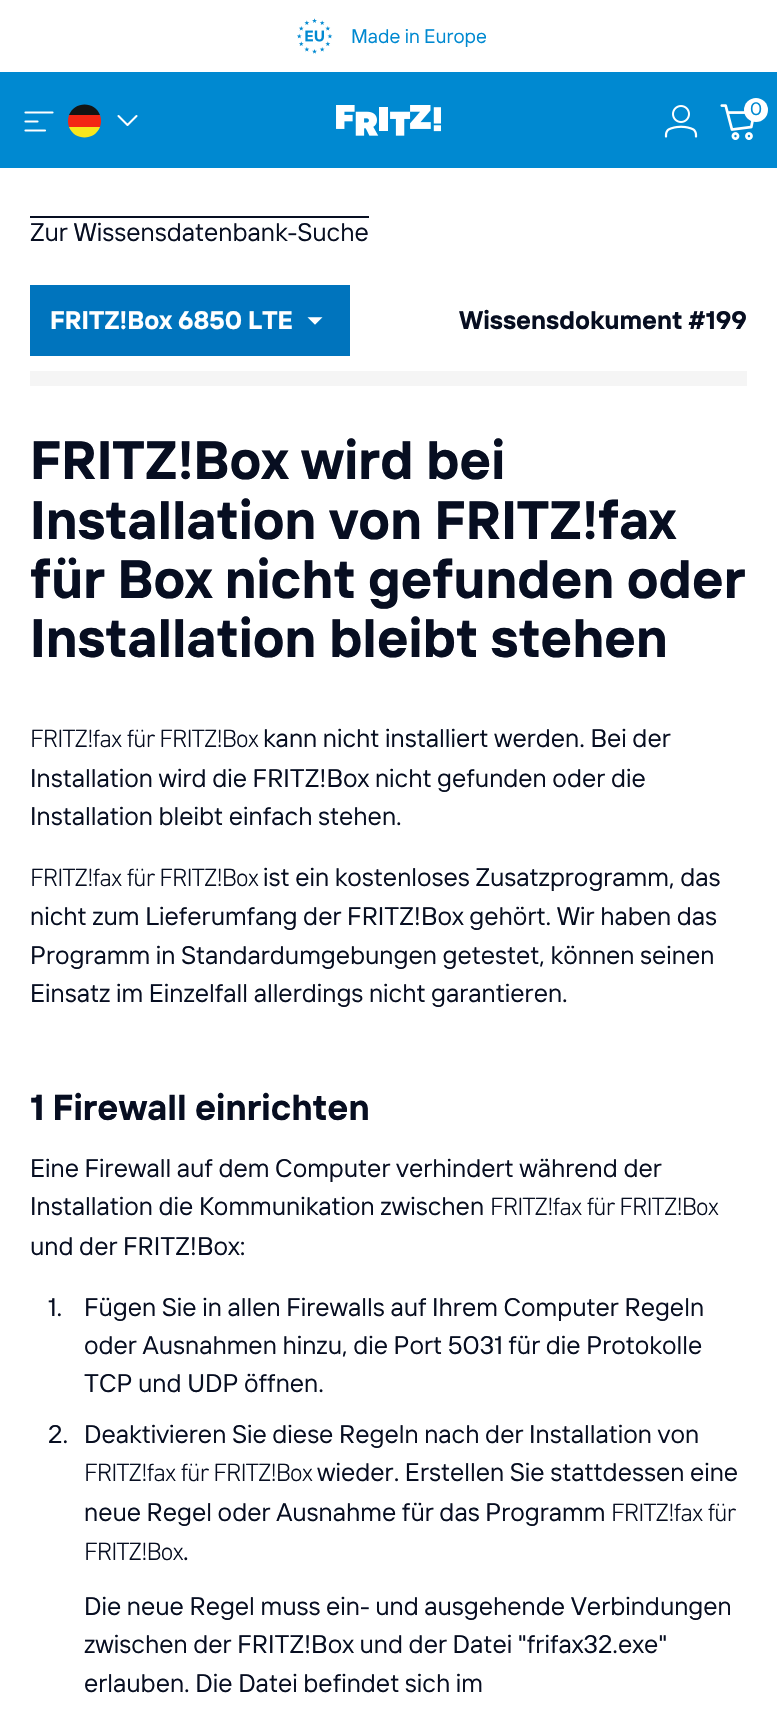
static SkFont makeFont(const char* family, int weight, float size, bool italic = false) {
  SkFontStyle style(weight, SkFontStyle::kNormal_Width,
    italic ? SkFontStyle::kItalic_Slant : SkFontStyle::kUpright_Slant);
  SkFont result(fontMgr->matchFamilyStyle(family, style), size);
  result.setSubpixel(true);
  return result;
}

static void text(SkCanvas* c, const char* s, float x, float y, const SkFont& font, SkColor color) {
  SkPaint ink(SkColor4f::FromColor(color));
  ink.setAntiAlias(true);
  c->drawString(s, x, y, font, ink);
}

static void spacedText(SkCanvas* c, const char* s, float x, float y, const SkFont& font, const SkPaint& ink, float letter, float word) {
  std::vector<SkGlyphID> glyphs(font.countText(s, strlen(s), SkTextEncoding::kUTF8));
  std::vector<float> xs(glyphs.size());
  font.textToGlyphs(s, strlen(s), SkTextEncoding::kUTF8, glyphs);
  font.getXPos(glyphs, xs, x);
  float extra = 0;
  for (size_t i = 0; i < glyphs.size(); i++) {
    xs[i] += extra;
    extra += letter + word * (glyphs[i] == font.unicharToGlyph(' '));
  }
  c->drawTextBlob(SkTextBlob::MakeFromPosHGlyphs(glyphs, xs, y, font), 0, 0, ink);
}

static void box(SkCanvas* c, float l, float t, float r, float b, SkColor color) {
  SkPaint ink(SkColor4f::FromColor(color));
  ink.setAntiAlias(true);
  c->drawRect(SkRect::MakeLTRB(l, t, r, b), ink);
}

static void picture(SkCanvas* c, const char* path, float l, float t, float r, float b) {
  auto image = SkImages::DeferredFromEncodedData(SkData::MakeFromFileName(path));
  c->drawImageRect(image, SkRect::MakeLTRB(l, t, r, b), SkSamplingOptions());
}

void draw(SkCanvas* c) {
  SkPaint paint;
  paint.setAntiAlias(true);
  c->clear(0xffffffff);
  picture(c, "img_01.png", 297, 18, 333, 54);
  SkFont face1 = makeFont("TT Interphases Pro", 400, 19.5f);
  text(c, "Made in Europe", 351, 43, face1, 0xff0089d1);
  box(c, 0, 72, 777, 168, 0xff0089d1);
  paint.setStyle(SkPaint::kStroke_Style);
  paint.setStrokeWidth(2.2f);
  paint.setStrokeCap(SkPaint::kRound_Cap);
  paint.setColor(0xffffffff);
  c->drawPath(SkPathBuilder().moveTo(25.5f, 112.5f).lineTo(52.5f, 112.5f).moveTo(25.5f, 121.5f).lineTo(37.5f, 121.5f).moveTo(25.5f, 130.5f).lineTo(45, 130.5f).detach(), paint);
  paint.setStyle(SkPaint::kFill_Style);
  paint.setColor(0xfff32614);
  c->drawPath(SkPathBuilder().moveTo(100, 115).lineTo(69, 115).cubicTo(67.5f, 119, 67.5f, 124, 69.5f, 128).lineTo(99.5f, 128).cubicTo(101.5f, 124, 101.5f, 119, 100, 115).close().detach(), paint);
  paint.setColor(0xfff8e71c);
  c->drawPath(SkPathBuilder().moveTo(100, 127).lineTo(69, 127).cubicTo(74.5f, 141, 94.5f, 141, 100, 127).close().detach(), paint);
  paint.setColor(0xff131413);
  c->drawPath(SkPathBuilder().moveTo(84.5f, 104.5f).cubicTo(91.5f, 104.5f, 97.5f, 108.5f, 100, 115).lineTo(69, 115).cubicTo(71.5f, 108.5f, 78, 104.5f, 84.5f, 104.5f).close().detach(), paint);
  paint.setStyle(SkPaint::kStroke_Style);
  paint.setStrokeWidth(2.1f);
  paint.setStrokeJoin(SkPaint::kRound_Join);
  paint.setColor(0xffffffff);
  c->drawPath(SkPathBuilder().moveTo(118.5f, 116).lineTo(127.5f, 125).lineTo(136.5f, 116).detach(), paint);
  picture(c, "img_02.png", 336, 105, 441, 136);
  picture(c, "img_03.png", 664, 105, 698, 138);
  picture(c, "img_04.png", 720, 104, 754, 140);
  paint.setStyle(SkPaint::kFill_Style);
  c->drawCircle(756, 110, 12, paint);
  SkFont face2 = makeFont("TT Interphases Pro", 400, 18);
  text(c, "0", 750, 115, face2, 0xff0089d1);
  SkFont face3 = makeFont("TT Interphases Pro", 400, 25.5f);
  text(c, "Zur Wissensdatenbank-Suche", 30, 241, face3, 0xff070e21);
  box(c, 30, 216, 369, 218, 0xff070e21);
  box(c, 30, 371, 747, 386, 0xfff5f5f5);
  box(c, 30, 285, 350, 356, 0xff0074bd);
  SkFont face4 = makeFont("TT Interphases Pro", 700, 25.5f);
  text(c, "FRITZ!Box 6850 LTE", 50, 329, face4, 0xffffffff);
  picture(c, "img_05.png", 307, 317, 323, 325);
  text(c, "Wissensdokument #199", 459, 329, face4, 0xff070e21);
  SkFont face5 = makeFont("TT Interphases Pro", 700, 54);
  text(c, "FRITZ!Box wird bei", 30, 479, face5, 0xff070e21);
  text(c, "Installation von FRITZ!fax", 30, 539, face5, 0xff070e21);
  text(c, "für Box nicht gefunden oder", 30, 598, face5, 0xff070e21);
  text(c, "Installation bleibt stehen", 30, 657, face5, 0xff070e21);
  SkFont face6 = makeFont("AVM", 300, 25.5f);
  paint.setColor(0xff070e21);
  spacedText(c, "FRITZ!fax für FRITZ!Box", 30, 747, face6, paint, -1.25f, 0);
  text(c, "kann nicht installiert werden. Bei der", 263, 747, face3, 0xff070e21);
  text(c, "Installation wird die FRITZ!Box nicht gefunden oder die", 30, 787, face3, 0xff070e21);
  text(c, "Installation bleibt einfach stehen.", 30, 825, face3, 0xff070e21);
  spacedText(c, "FRITZ!fax für FRITZ!Box", 30, 886, face6, paint, -1.25f, 0);
  text(c, "ist ein kostenloses Zusatzprogramm, das", 263, 886, face3, 0xff070e21);
  text(c, "nicht zum Lieferumfang der FRITZ!Box gehört. Wir haben das", 30, 925, face3, 0xff070e21);
  text(c, "Programm in Standardumgebungen getestet, können seinen", 30, 964, face3, 0xff070e21);
  text(c, "Einsatz im Einzelfall allerdings nicht garantieren.", 30, 1002, face3, 0xff070e21);
  SkFont face7 = makeFont("TT Interphases Pro", 700, 36);
  text(c, "1 Firewall einrichten", 30, 1120, face7, 0xff070e21);
  text(c, "Eine Firewall auf dem Computer verhindert während der", 30, 1177, face3, 0xff070e21);
  text(c, "Installation die Kommunikation zwischen", 30, 1215, face3, 0xff070e21);
  spacedText(c, "FRITZ!fax für FRITZ!Box", 490, 1215, face6, paint, -1.25f, 0);
  text(c, "und der FRITZ!Box:", 30, 1255, face3, 0xff070e21);
  text(c, "1.", 48, 1316, face3, 0xff070e21);
  text(c, "Fügen Sie in allen Firewalls auf Ihrem Computer Regeln", 84, 1316, face3, 0xff070e21);
  text(c, "oder Ausnahmen hinzu, die Port 5031 für die Protokolle", 84, 1354, face3, 0xff070e21);
  text(c, "TCP und UDP öffnen.", 84, 1392, face3, 0xff070e21);
  text(c, "2.", 48, 1443, face3, 0xff070e21);
  text(c, "Deaktivieren Sie diese Regeln nach der Installation von", 84, 1443, face3, 0xff070e21);
  spacedText(c, "FRITZ!fax für FRITZ!Box", 84, 1481, face6, paint, -1.25f, 0);
  text(c, "wieder. Erstellen Sie stattdessen eine", 317, 1481, face3, 0xff070e21);
  text(c, "neue Regel oder Ausnahme für das Programm", 84, 1521, face3, 0xff070e21);
  spacedText(c, "FRITZ!fax für", 611, 1521, face6, paint, -1.25f, 0);
  spacedText(c, "FRITZ!Box", 84, 1560, face6, paint, -1.25f, 0);
  text(c, ".", 183, 1560, face3, 0xff070e21);
  text(c, "Die neue Regel muss ein- und ausgehende Verbindungen", 84, 1615, face3, 0xff070e21);
  text(c, "zwischen der FRITZ!Box und der Datei \"frifax32.exe\"", 84, 1653, face3, 0xff070e21);
  text(c, "erlauben. Die Datei befindet sich im", 84, 1692, face3, 0xff070e21);
}
